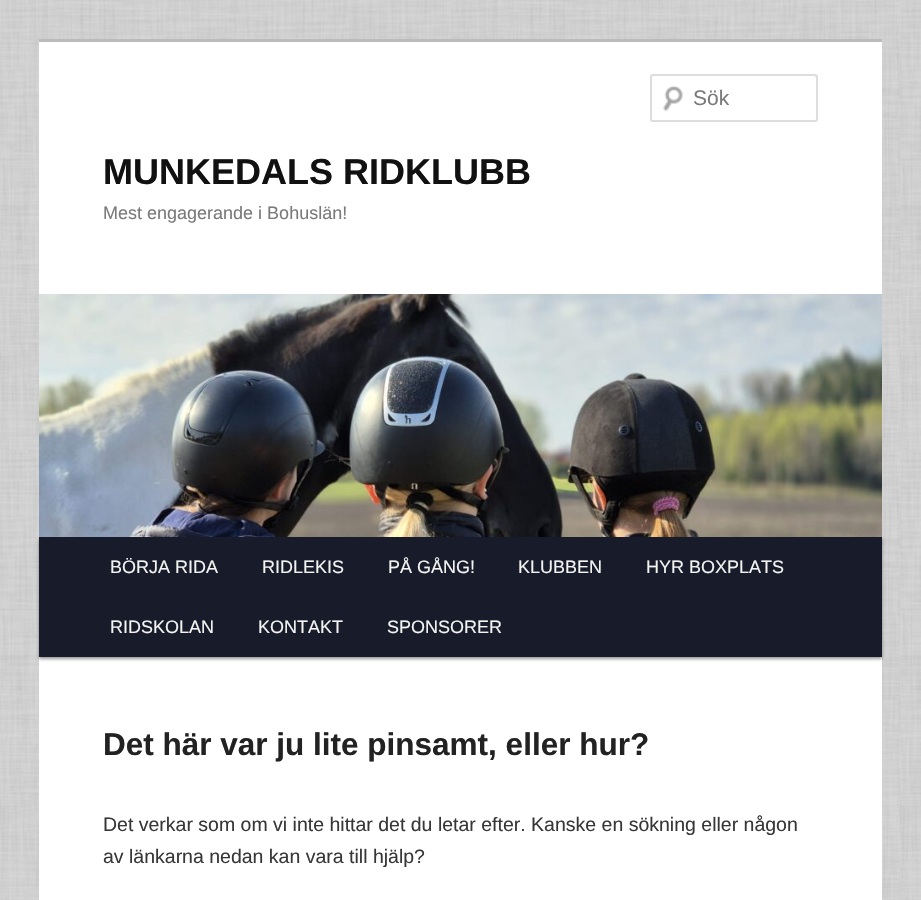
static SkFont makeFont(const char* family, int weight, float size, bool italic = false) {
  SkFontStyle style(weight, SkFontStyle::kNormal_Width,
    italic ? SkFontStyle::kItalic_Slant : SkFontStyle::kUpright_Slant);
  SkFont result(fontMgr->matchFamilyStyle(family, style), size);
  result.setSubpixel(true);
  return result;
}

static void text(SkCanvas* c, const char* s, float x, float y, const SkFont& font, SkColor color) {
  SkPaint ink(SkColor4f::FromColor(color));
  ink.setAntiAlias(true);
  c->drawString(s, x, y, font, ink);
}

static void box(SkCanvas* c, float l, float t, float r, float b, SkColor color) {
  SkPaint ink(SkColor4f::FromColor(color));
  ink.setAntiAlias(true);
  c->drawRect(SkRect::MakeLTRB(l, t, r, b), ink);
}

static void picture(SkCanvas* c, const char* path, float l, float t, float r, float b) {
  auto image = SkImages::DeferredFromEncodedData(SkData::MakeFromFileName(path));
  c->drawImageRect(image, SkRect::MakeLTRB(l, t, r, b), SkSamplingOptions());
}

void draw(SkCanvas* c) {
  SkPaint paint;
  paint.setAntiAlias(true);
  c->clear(0xffffffff);
  picture(c, "img_01.png", 0, 0, 921, 900);
  box(c, 39, 42, 882, 900, 0xffffffff);
  box(c, 39, 39, 882, 42, 0xffbbbbbb);
  picture(c, "img_02.png", 663, 85, 683, 112);
  paint.setColor(0xffe6e6e6);
  c->drawPath(SkPathBuilder().moveTo(652, 76).lineTo(814, 76).cubicTo(815, 76, 816, 77, 816, 78).lineTo(816, 76).cubicTo(816, 76, 815, 75, 814, 75).lineTo(652, 75).cubicTo(652, 75, 651, 76, 651, 76).lineTo(651, 78).close().detach(), paint);
  paint.setStyle(SkPaint::kStroke_Style);
  paint.setStrokeWidth(2);
  paint.setColor(0xffdddddd);
  c->drawRoundRect(SkRect::MakeLTRB(651, 75, 817, 121), 2, 2, paint);
  SkFont face1 = makeFont("Liberation Sans", 400, 21);
  text(c, "Sök", 693, 105, face1, 0xff7a7a7a);
  SkFont face2 = makeFont("Liberation Sans", 700, 36);
  text(c, "MUNKEDALS RIDKLUBB", 103, 184, face2, 0xff111111);
  SkFont face3 = makeFont("Liberation Sans", 400, 18);
  text(c, "Mest engagerande i Bohuslän!", 103, 219, face3, 0xff7a7a7a);
  paint.setStyle(SkPaint::kFill_Style);
  paint.setColor(0x66000000);
  paint.setMaskFilter(SkMaskFilter::MakeBlur(kNormal_SkBlurStyle, 1.5f));
  c->drawRect(SkRect::MakeLTRB(39, 539, 882, 659), paint);
  paint.setMaskFilter(nullptr);
  picture(c, "img_03.png", 39, 294, 882, 537);
  box(c, 39, 537, 882, 657, 0xff181b29);
  text(c, "BÖRJA RIDA", 110, 573, face3, 0xfff3f3f2);
  text(c, "RIDLEKIS", 262, 573, face3, 0xfff3f3f2);
  text(c, "PÅ GÅNG!", 388, 573, face3, 0xfff3f3f2);
  text(c, "KLUBBEN", 518, 573, face3, 0xfff3f3f2);
  text(c, "HYR BOXPLATS", 646, 573, face3, 0xfff3f3f2);
  text(c, "RIDSKOLAN", 110, 633, face3, 0xfff3f3f2);
  text(c, "KONTAKT", 258, 633, face3, 0xfff3f3f2);
  text(c, "SPONSORER", 387, 633, face3, 0xfff3f3f2);
  SkFont face4 = makeFont("Liberation Sans", 700, 31.5f);
  text(c, "Det här var ju lite pinsamt, eller hur?", 103, 755, face4, 0xff222222);
  SkFont face5 = makeFont("Liberation Sans", 400, 19.5f);
  text(c, "Det verkar som om vi inte hittar det du letar efter. Kanske en sökning eller någon", 103, 831, face5, 0xff373737);
  text(c, "av länkarna nedan kan vara till hjälp?", 103, 863, face5, 0xff373737);
}
